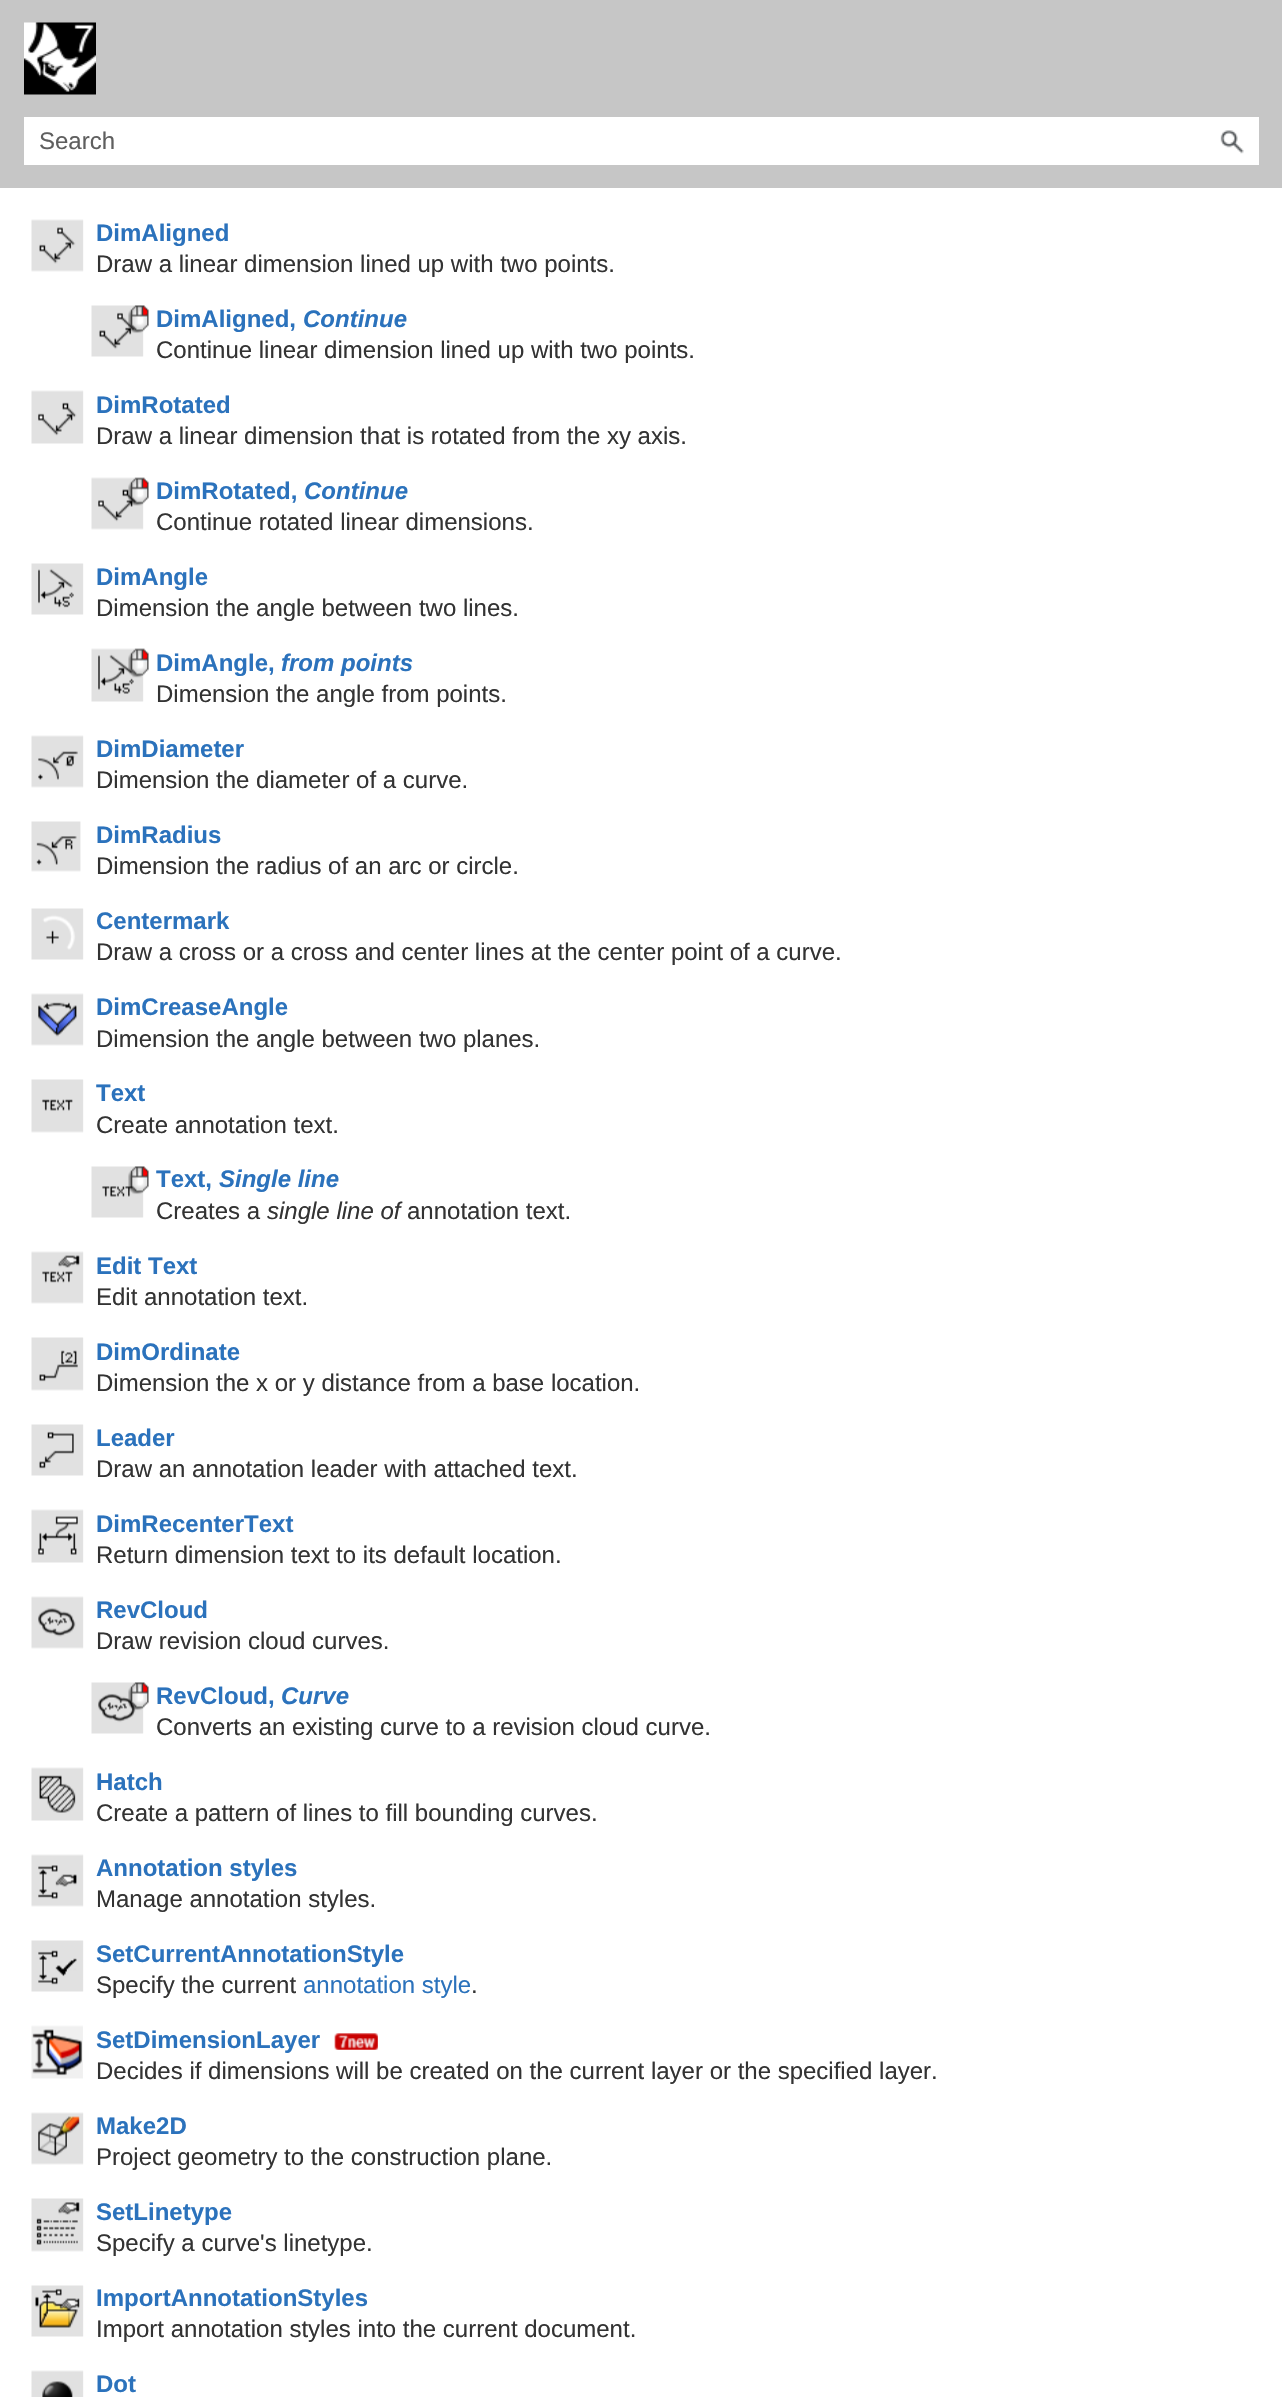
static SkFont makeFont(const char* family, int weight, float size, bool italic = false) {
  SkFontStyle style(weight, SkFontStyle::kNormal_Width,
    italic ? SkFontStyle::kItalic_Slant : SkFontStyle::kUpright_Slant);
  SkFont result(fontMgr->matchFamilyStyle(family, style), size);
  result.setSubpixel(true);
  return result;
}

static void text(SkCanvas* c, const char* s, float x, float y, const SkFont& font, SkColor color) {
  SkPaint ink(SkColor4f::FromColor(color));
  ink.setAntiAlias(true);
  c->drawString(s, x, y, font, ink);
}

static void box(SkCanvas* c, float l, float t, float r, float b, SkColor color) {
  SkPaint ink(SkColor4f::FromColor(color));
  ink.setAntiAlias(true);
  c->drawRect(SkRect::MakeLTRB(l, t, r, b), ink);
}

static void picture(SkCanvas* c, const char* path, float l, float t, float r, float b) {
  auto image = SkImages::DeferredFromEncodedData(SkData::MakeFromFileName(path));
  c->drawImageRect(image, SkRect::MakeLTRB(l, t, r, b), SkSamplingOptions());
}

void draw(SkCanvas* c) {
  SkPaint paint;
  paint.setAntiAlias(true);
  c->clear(0xffffffff);
  box(c, 0, 0, 1282, 188, 0xffc6c6c6);
  picture(c, "img_01.png", 24, 22, 96, 95);
  box(c, 24, 117, 1259, 165, 0xffffffff);
  SkFont face1 = makeFont("Liberation Sans", 400, 24);
  text(c, "Search", 39, 149, face1, 0xff5f5f5f);
  picture(c, "img_02.png", 1220, 130, 1244, 154);
  picture(c, "img_03.png", 31, 219, 84, 272);
  SkFont face2 = makeFont("Liberation Sans", 700, 24);
  text(c, "DimAligned", 96, 241, face2, 0xff2b72bc);
  text(c, "Draw a linear dimension lined up with two points.", 96, 272, face1, 0xff333333);
  picture(c, "img_04.png", 91, 305, 149, 357);
  text(c, "DimAligned,", 156, 327, face2, 0xff2b72bc);
  SkFont face3 = makeFont("Liberation Sans", 700, 24, true);
  text(c, "Continue", 303, 327, face3, 0xff2b72bc);
  text(c, "Continue linear dimension lined up with two points.", 156, 358, face1, 0xff333333);
  picture(c, "img_05.png", 31, 390, 84, 444);
  text(c, "DimRotated", 96, 413, face2, 0xff2b72bc);
  text(c, "Draw a linear dimension that is rotated from the xy axis.", 96, 444, face1, 0xff333333);
  picture(c, "img_06.png", 91, 477, 149, 530);
  text(c, "DimRotated,", 156, 499, face2, 0xff2b72bc);
  text(c, "Continue", 304, 499, face3, 0xff2b72bc);
  text(c, "Continue rotated linear dimensions.", 156, 530, face1, 0xff333333);
  picture(c, "img_07.png", 31, 563, 84, 615);
  text(c, "DimAngle", 96, 585, face2, 0xff2b72bc);
  text(c, "Dimension the angle between two lines.", 96, 616, face1, 0xff333333);
  picture(c, "img_08.png", 91, 648, 149, 702);
  text(c, "DimAngle,", 156, 671, face2, 0xff2b72bc);
  text(c, "from points", 281, 671, face3, 0xff2b72bc);
  text(c, "Dimension the angle from points.", 156, 702, face1, 0xff333333);
  picture(c, "img_09.png", 31, 735, 84, 788);
  text(c, "DimDiameter", 96, 757, face2, 0xff2b72bc);
  text(c, "Dimension the diameter of a curve.", 96, 788, face1, 0xff333333);
  picture(c, "img_10.png", 31, 821, 81, 872);
  text(c, "DimRadius", 96, 843, face2, 0xff2b72bc);
  text(c, "Dimension the radius of an arc or circle.", 96, 874, face1, 0xff333333);
  picture(c, "img_11.png", 31, 908, 84, 960);
  text(c, "Centermark", 96, 929, face2, 0xff2b72bc);
  text(c, "Draw a cross or a cross and center lines at the center point of a curve.", 96, 960, face1, 0xff333333);
  picture(c, "img_12.png", 31, 993, 84, 1046);
  text(c, "DimCreaseAngle", 96, 1015, face2, 0xff2b72bc);
  text(c, "Dimension the angle between two planes.", 96, 1047, face1, 0xff333333);
  picture(c, "img_13.png", 31, 1079, 84, 1133);
  text(c, "Text", 96, 1101, face2, 0xff2b72bc);
  text(c, "Create annotation text.", 96, 1133, face1, 0xff333333);
  picture(c, "img_14.png", 91, 1166, 149, 1218);
  text(c, "Text,", 156, 1187, face2, 0xff2b72bc);
  text(c, "Single line", 219, 1187, face3, 0xff2b72bc);
  text(c, "Creates a", 156, 1219, face1, 0xff333333);
  SkFont face4 = makeFont("Liberation Sans", 400, 24, true);
  text(c, "single line of", 267, 1219, face4, 0xff333333);
  text(c, "annotation text.", 407, 1219, face1, 0xff333333);
  picture(c, "img_15.png", 31, 1251, 84, 1304);
  text(c, "Edit Text", 96, 1274, face2, 0xff2b72bc);
  text(c, "Edit annotation text.", 96, 1305, face1, 0xff333333);
  picture(c, "img_16.png", 31, 1337, 84, 1391);
  text(c, "DimOrdinate", 96, 1360, face2, 0xff2b72bc);
  text(c, "Dimension the x or y distance from a base location.", 96, 1391, face1, 0xff333333);
  picture(c, "img_17.png", 31, 1424, 84, 1476);
  text(c, "Leader", 96, 1446, face2, 0xff2b72bc);
  text(c, "Draw an annotation leader with attached text.", 96, 1477, face1, 0xff333333);
  picture(c, "img_18.png", 31, 1509, 84, 1563);
  text(c, "DimRecenterText", 96, 1532, face2, 0xff2b72bc);
  text(c, "Return dimension text to its default location.", 96, 1563, face1, 0xff333333);
  picture(c, "img_19.png", 31, 1596, 84, 1649);
  text(c, "RevCloud", 96, 1618, face2, 0xff2b72bc);
  text(c, "Draw revision cloud curves.", 96, 1649, face1, 0xff333333);
  picture(c, "img_20.png", 91, 1682, 149, 1734);
  text(c, "RevCloud,", 156, 1704, face2, 0xff2b72bc);
  text(c, "Curve", 281, 1704, face3, 0xff2b72bc);
  text(c, "Converts an existing curve to a revision cloud curve.", 156, 1735, face1, 0xff333333);
  picture(c, "img_21.png", 31, 1767, 84, 1821);
  text(c, "Hatch", 96, 1790, face2, 0xff2b72bc);
  text(c, "Create a pattern of lines to fill bounding curves.", 96, 1821, face1, 0xff333333);
  picture(c, "img_22.png", 31, 1854, 84, 1907);
  text(c, "Annotation styles", 96, 1876, face2, 0xff2b72bc);
  text(c, "Manage annotation styles.", 96, 1907, face1, 0xff333333);
  picture(c, "img_23.png", 31, 1940, 84, 1992);
  text(c, "SetCurrentAnnotationStyle", 96, 1962, face2, 0xff2b72bc);
  text(c, "Specify the current", 96, 1993, face1, 0xff333333);
  text(c, "annotation style", 303, 1993, face1, 0xff2b72bc);
  text(c, ".", 471, 1993, face1, 0xff333333);
  picture(c, "img_24.png", 31, 2025, 83, 2079);
  text(c, "SetDimensionLayer", 96, 2048, face2, 0xff2b72bc);
  picture(c, "img_25.png", 334, 2033, 378, 2050);
  text(c, "Decides if dimensions will be created on the current layer or the specified layer.", 96, 2079, face1, 0xff333333);
  picture(c, "img_26.png", 31, 2112, 84, 2165);
  text(c, "Make2D", 96, 2134, face2, 0xff2b72bc);
  text(c, "Project geometry to the construction plane.", 96, 2165, face1, 0xff333333);
  picture(c, "img_27.png", 31, 2198, 84, 2252);
  text(c, "SetLinetype", 96, 2220, face2, 0xff2b72bc);
  text(c, "Specify a curve's linetype.", 96, 2251, face1, 0xff333333);
  picture(c, "img_28.png", 31, 2285, 84, 2337);
  text(c, "ImportAnnotationStyles", 96, 2306, face2, 0xff2b72bc);
  text(c, "Import annotation styles into the current document.", 96, 2337, face1, 0xff333333);
  picture(c, "img_29.png", 31, 2370, 84, 2397);
  text(c, "Dot", 96, 2392, face2, 0xff2b72bc);
}
